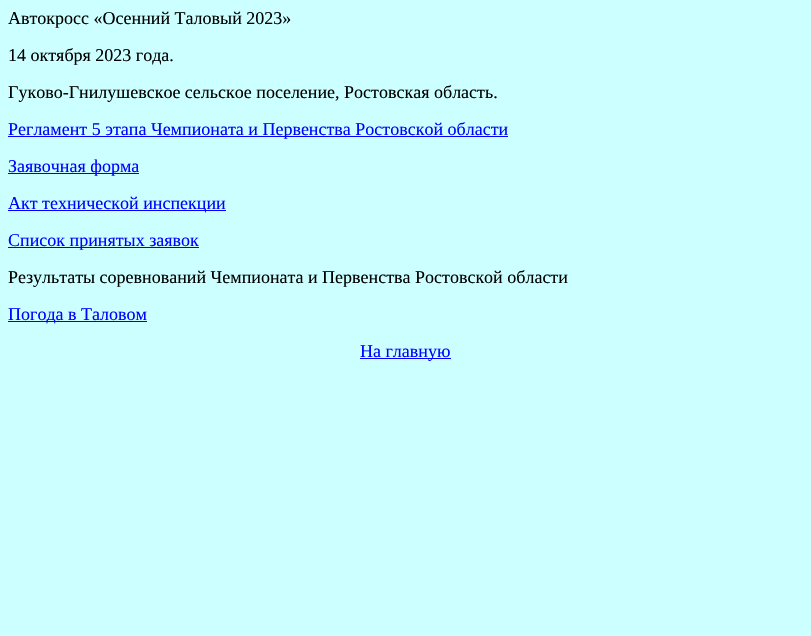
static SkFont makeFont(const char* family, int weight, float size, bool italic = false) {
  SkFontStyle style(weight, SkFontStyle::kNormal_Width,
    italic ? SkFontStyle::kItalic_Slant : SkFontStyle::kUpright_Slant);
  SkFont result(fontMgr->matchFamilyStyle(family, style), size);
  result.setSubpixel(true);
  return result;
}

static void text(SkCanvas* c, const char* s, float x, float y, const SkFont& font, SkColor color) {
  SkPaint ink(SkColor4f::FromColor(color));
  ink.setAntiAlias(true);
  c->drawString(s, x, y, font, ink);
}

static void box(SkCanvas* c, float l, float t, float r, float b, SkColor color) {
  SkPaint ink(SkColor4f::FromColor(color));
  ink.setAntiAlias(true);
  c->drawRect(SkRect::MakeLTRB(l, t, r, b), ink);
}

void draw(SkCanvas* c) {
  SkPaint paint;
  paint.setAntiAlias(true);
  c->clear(0xffccffff);
  SkFont face1 = makeFont("Liberation Serif", 400, 18);
  text(c, "Автокросс «Осенний Таловый 2023»", 8, 24, face1, 0xff000000);
  text(c, "14 октября 2023 года.", 8, 61, face1, 0xff000000);
  text(c, "Гуково-Гнилушевское сельское поселение, Ростовская область.", 8, 98, face1, 0xff000000);
  box(c, 8, 136, 508, 137, 0xff0000ff);
  text(c, "Регламент 5 этапа Чемпионата и Первенства Ростовской области", 8, 135, face1, 0xff0000ff);
  box(c, 8, 173, 139, 174, 0xff0000ff);
  text(c, "Заявочная форма", 8, 172, face1, 0xff0000ff);
  box(c, 8, 210, 226, 211, 0xff0000ff);
  text(c, "Акт технической инспекции", 8, 209, face1, 0xff0000ff);
  box(c, 8, 247, 199, 248, 0xff0000ff);
  text(c, "Список принятых заявок", 8, 246, face1, 0xff0000ff);
  text(c, "Результаты соревнований Чемпионата и Первенства Ростовской области", 8, 283, face1, 0xff000000);
  box(c, 8, 321, 147, 322, 0xff0000ff);
  text(c, "Погода в Таловом", 8, 320, face1, 0xff0000ff);
  box(c, 360, 358, 451, 359, 0xff0000ff);
  text(c, "На главную", 360, 357, face1, 0xff0000ff);
}
